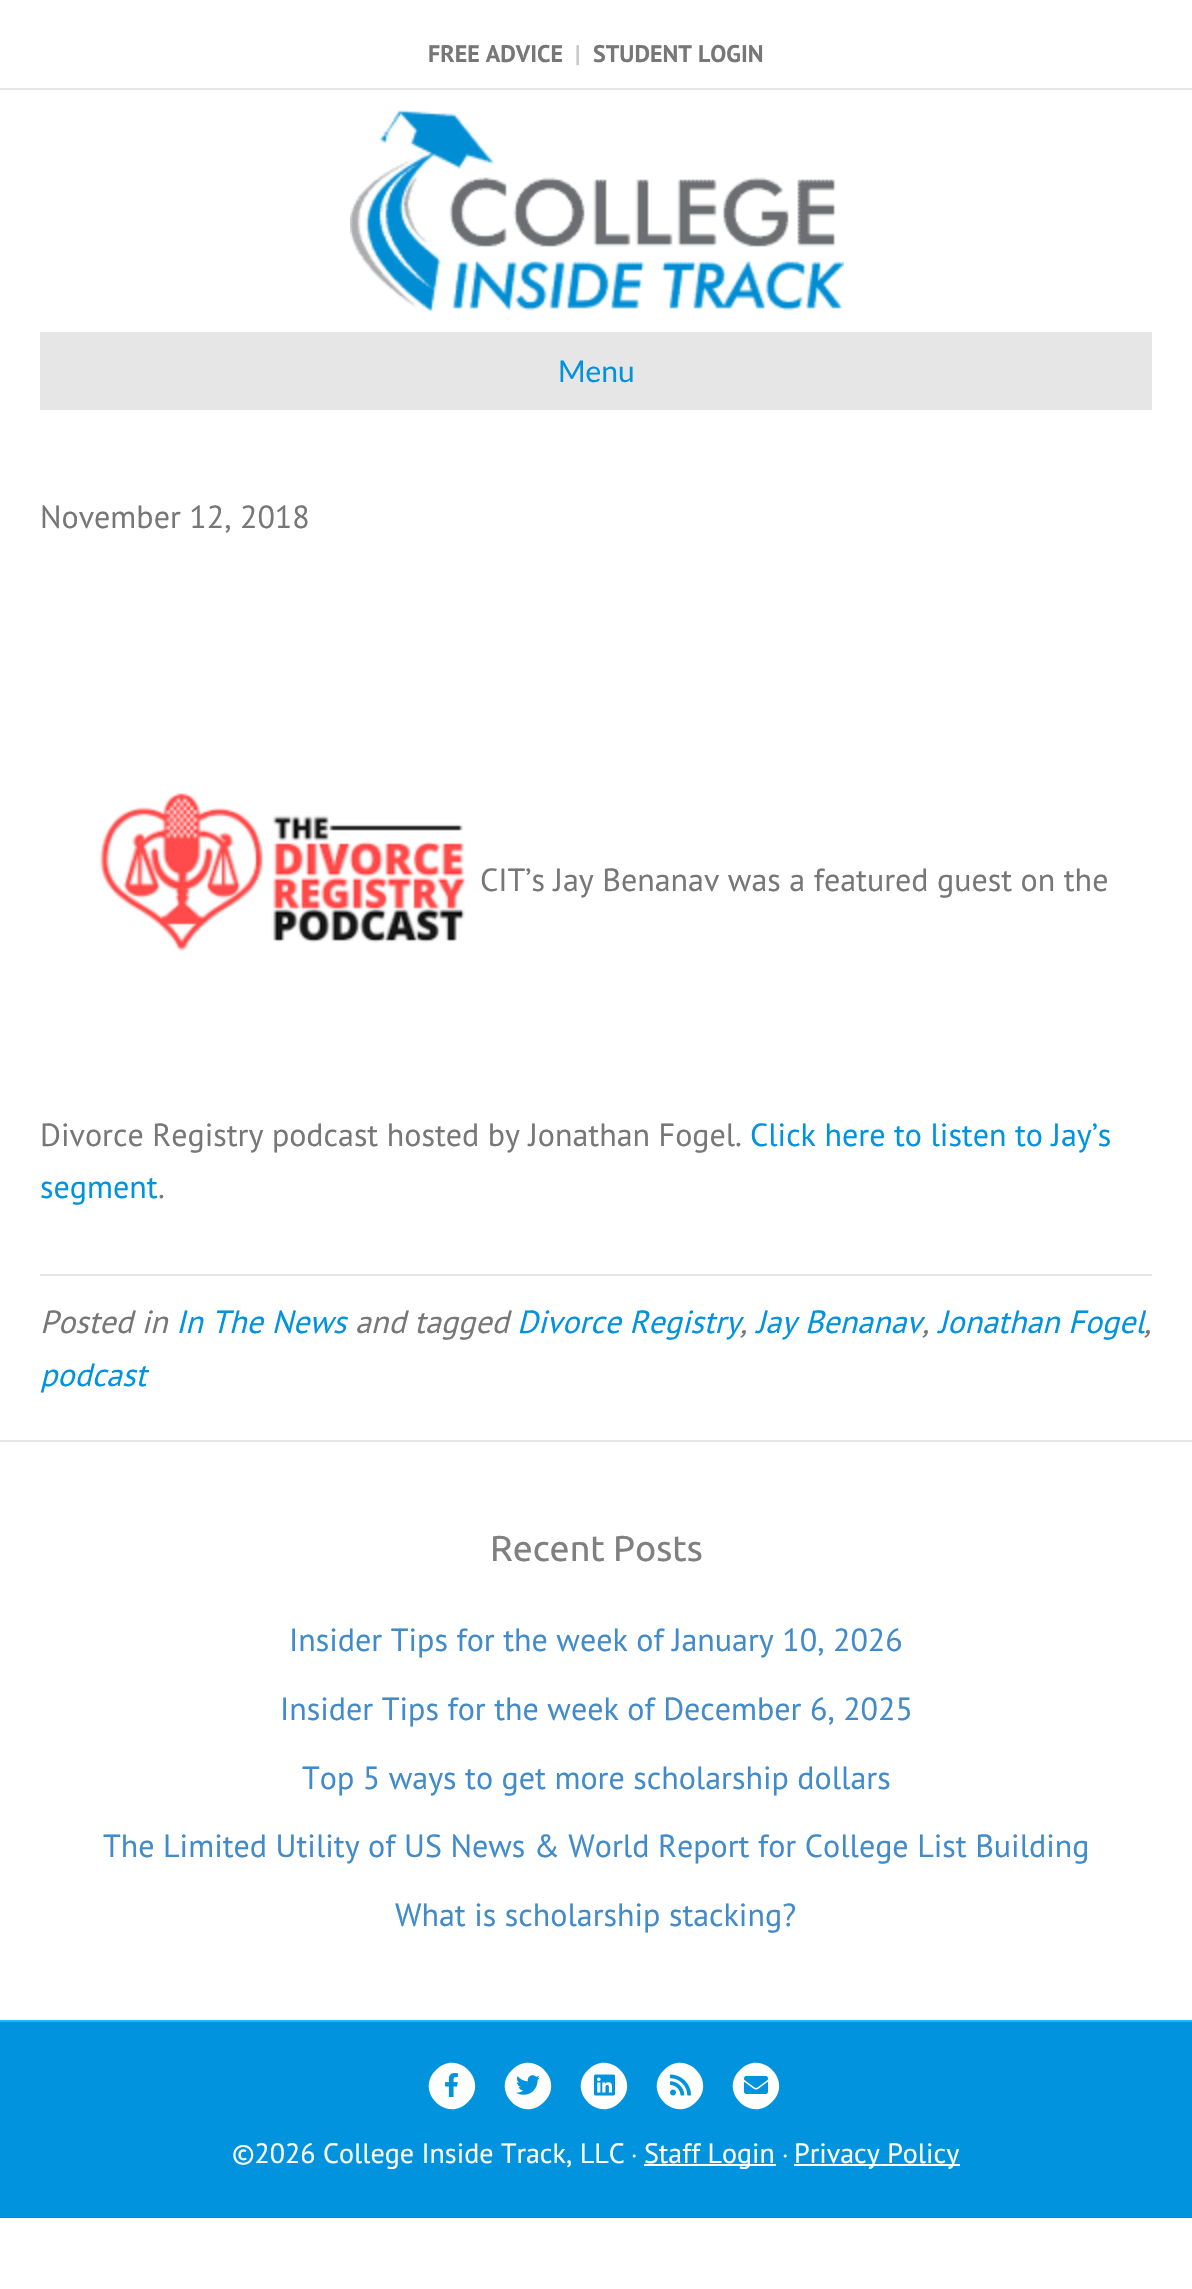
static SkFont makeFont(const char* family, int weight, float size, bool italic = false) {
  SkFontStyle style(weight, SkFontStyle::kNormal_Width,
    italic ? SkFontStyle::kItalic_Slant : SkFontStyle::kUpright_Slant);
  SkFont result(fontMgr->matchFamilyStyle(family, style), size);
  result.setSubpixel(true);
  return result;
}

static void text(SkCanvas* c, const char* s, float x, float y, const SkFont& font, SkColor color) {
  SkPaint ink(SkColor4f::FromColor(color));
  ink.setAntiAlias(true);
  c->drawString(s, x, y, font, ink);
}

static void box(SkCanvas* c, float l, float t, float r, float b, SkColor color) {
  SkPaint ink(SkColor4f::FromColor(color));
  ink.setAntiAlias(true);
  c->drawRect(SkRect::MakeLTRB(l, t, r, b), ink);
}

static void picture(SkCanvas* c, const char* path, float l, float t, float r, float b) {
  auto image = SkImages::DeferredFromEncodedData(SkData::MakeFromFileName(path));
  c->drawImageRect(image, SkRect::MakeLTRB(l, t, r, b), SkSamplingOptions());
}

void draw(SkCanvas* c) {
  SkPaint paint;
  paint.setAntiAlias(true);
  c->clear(0xffffffff);
  box(c, 0, 88, 1192, 90, 0xffe6e6e6);
  SkFont face1 = makeFont("PT Sans", 700, 24);
  text(c, "FREE ADVICE", 428, 62, face1, 0xff777777);
  text(c, "|", 575, 62, face1, 0xffcccccc);
  text(c, "STUDENT LOGIN", 593, 62, face1, 0xff777777);
  picture(c, "img_01.png", 350, 110, 844, 312);
  box(c, 40, 332, 1152, 410, 0xffe6e6e6);
  SkFont face2 = makeFont("Lato", 400, 30);
  text(c, "Menu", 558, 382, face2, 0xff0193de);
  SkFont face3 = makeFont("PT Sans", 400, 32);
  text(c, "November 12, 2018", 40, 528, face3, 0xff777777);
  picture(c, "img_02.png", 99, 793, 466, 951);
  text(c, "CIT’s Jay Benanav was a featured guest on the", 480, 891, face3, 0xff777777);
  text(c, "Divorce Registry podcast hosted by Jonathan Fogel.", 40, 1146, face3, 0xff777777);
  text(c, "Click here to listen to Jay’s", 750, 1146, face3, 0xff0193de);
  text(c, "segment", 40, 1198, face3, 0xff0193de);
  text(c, ".", 158, 1198, face3, 0xff777777);
  box(c, 40, 1274, 1152, 1276, 0xffe6e6e6);
  SkFont face4 = makeFont("PT Sans", 400, 32, true);
  text(c, "Posted in", 40, 1333, face4, 0xff777777);
  text(c, "In The News", 176, 1333, face4, 0xff0193de);
  text(c, "and tagged", 355, 1333, face4, 0xff777777);
  text(c, "Divorce Registry", 517, 1333, face4, 0xff0193de);
  text(c, "Jay Benanav", 756, 1333, face4, 0xff0193de);
  text(c, "Jonathan Fogel", 938, 1333, face4, 0xff0193de);
  text(c, ",", 740, 1333, face4, 0xff777777);
  text(c, ",", 922, 1333, face4, 0xff777777);
  text(c, ",", 1144, 1333, face4, 0xff777777);
  text(c, "podcast", 40, 1386, face4, 0xff0193de);
  box(c, 0, 1440, 1192, 1442, 0xffe6e6e6);
  SkFont face5 = makeFont("Ubuntu", 400, 36);
  text(c, "Recent Posts", 490, 1561, face5, 0xff808080);
  text(c, "Insider Tips for the week of January 10, 2026", 289, 1651, face3, 0xff428bca);
  text(c, "Insider Tips for the week of December 6, 2025", 280, 1720, face3, 0xff428bca);
  text(c, "Top 5 ways to get more scholarship dollars", 302, 1789, face3, 0xff428bca);
  text(c, "The Limited Utility of US News & World Report for College List Building", 103, 1857, face3, 0xff428bca);
  text(c, "What is scholarship stacking?", 395, 1926, face3, 0xff428bca);
  box(c, 0, 2022, 1192, 2218, 0xff0193de);
  box(c, 0, 2020, 1192, 2022, 0xff23b4fe);
  paint.setColor(0xffffffff);
  c->drawPath(SkPathBuilder().moveTo(436, 2070).cubicTo(457, 2048, 490, 2081, 468, 2102).cubicTo(447, 2124, 414, 2091, 436, 2070).close().detach(), paint);
  picture(c, "img_03.png", 445, 2073, 458, 2097);
  c->drawPath(SkPathBuilder().moveTo(512, 2070).cubicTo(533, 2048, 566, 2081, 544, 2102).cubicTo(523, 2124, 490, 2091, 512, 2070).close().detach(), paint);
  picture(c, "img_04.png", 516, 2075, 540, 2095);
  c->drawPath(SkPathBuilder().moveTo(588, 2070).cubicTo(609, 2048, 642, 2081, 620, 2102).cubicTo(599, 2124, 566, 2091, 588, 2070).close().detach(), paint);
  picture(c, "img_05.png", 594, 2074, 615, 2096);
  c->drawPath(SkPathBuilder().moveTo(664, 2070).cubicTo(685, 2048, 718, 2081, 696, 2102).cubicTo(675, 2124, 642, 2091, 664, 2070).close().detach(), paint);
  picture(c, "img_06.png", 670, 2074, 691, 2096);
  c->drawPath(SkPathBuilder().moveTo(740, 2070).cubicTo(761, 2048, 794, 2081, 772, 2102).cubicTo(751, 2124, 718, 2091, 740, 2070).close().detach(), paint);
  picture(c, "img_07.png", 744, 2076, 768, 2094);
  SkFont face6 = makeFont("PT Sans", 400, 28);
  text(c, "©2026 College Inside Track, LLC", 232, 2163, face6, 0xffffffff);
  SkFont face7 = makeFont("PT Sans", 400, 24);
  text(c, "·", 631, 2163, face7, 0xffffffff);
  box(c, 644, 2164, 776, 2166, 0xffffffff);
  text(c, "Staff Login", 644, 2163, face6, 0xffffffff);
  text(c, "·", 782, 2163, face7, 0xffffffff);
  box(c, 794, 2164, 960, 2166, 0xffffffff);
  text(c, "Privacy Policy", 794, 2163, face6, 0xffffffff);
}
